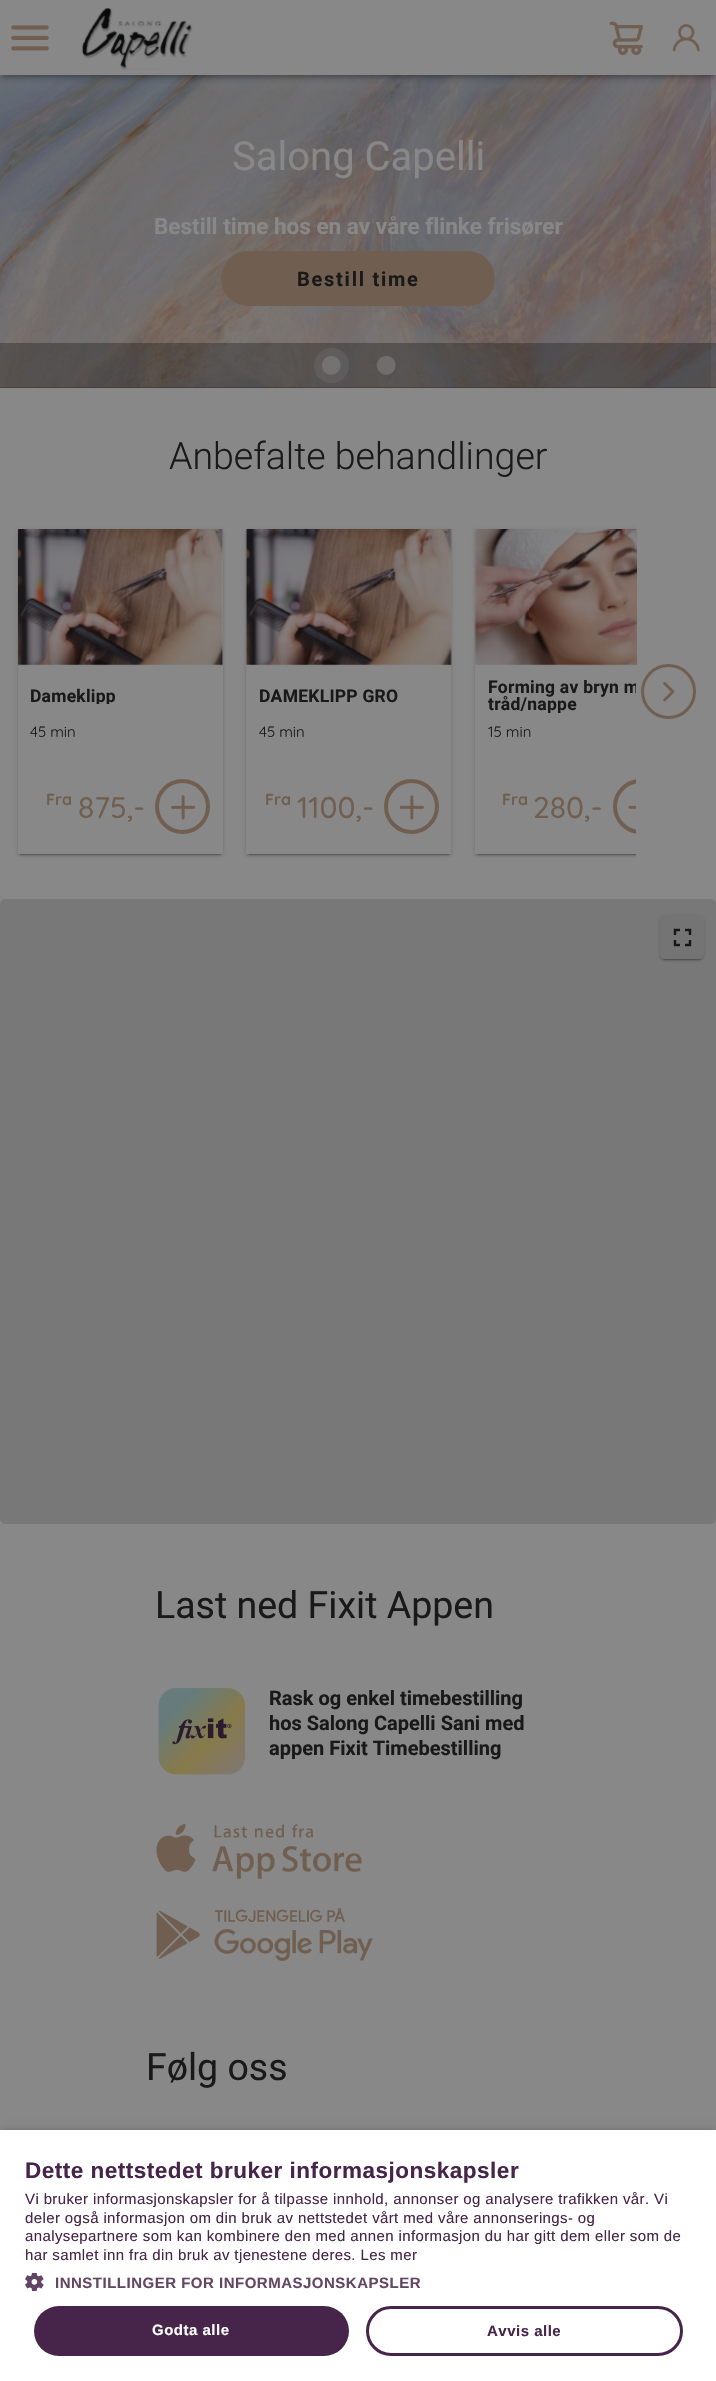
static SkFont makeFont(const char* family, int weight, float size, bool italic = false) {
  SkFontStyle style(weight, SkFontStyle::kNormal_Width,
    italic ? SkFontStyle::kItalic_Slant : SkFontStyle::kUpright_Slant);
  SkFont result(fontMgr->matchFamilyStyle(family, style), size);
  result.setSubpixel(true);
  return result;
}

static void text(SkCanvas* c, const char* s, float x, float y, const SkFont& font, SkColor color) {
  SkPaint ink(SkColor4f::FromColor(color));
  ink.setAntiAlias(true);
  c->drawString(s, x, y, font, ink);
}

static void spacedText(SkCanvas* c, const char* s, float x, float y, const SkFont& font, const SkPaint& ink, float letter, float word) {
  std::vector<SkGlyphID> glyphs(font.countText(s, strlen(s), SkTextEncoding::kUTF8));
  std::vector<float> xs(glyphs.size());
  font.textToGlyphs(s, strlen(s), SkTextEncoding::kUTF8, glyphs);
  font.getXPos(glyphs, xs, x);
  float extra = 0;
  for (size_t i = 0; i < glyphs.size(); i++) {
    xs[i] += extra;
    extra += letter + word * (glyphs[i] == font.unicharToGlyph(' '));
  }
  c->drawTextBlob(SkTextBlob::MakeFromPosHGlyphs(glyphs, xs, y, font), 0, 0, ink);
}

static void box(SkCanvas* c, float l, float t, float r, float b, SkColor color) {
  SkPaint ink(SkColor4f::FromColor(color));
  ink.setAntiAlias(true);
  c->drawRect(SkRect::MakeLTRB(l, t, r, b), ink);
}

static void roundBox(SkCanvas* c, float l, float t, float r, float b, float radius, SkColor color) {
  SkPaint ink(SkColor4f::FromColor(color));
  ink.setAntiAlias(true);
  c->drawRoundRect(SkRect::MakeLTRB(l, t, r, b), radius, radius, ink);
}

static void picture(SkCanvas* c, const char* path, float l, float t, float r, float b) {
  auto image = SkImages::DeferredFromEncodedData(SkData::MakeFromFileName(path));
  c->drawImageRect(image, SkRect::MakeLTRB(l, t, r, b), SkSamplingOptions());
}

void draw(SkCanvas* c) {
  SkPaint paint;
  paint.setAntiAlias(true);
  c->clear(0xff888888);
  box(c, 711, 387, 716, 388, 0xff494949);
  box(c, 0, 387, 711, 388, 0xff424242);
  picture(c, "img_05.png", 0, 75, 716, 388);
  paint.setColor(0x1f090909);
  paint.setMaskFilter(SkMaskFilter::MakeBlur(kNormal_SkBlurStyle, 5));
  c->drawRect(SkRect::MakeLTRB(0, 1, 716, 76), paint);
  paint.setMaskFilter(nullptr);
  paint.setColor(0x24090909);
  paint.setMaskFilter(SkMaskFilter::MakeBlur(kNormal_SkBlurStyle, 2.5f));
  c->drawRect(SkRect::MakeLTRB(0, 4, 716, 79), paint);
  paint.setMaskFilter(nullptr);
  paint.setColor(0x33090909);
  paint.setMaskFilter(SkMaskFilter::MakeBlur(kNormal_SkBlurStyle, 2));
  c->drawRect(SkRect::MakeLTRB(3, 6, 714, 76), paint);
  paint.setMaskFilter(nullptr);
  box(c, 0, 0, 716, 75, 0xff888888);
  picture(c, "img_01.png", 11, 25, 49, 51);
  picture(c, "img_02.png", 81, 8, 193, 70);
  picture(c, "img_03.png", 609, 21, 643, 55);
  picture(c, "img_04.png", 672, 24, 700, 52);
  SkFont face1 = makeFont("Roboto", 400, 40);
  text(c, "Salong Capelli", 232, 170, face1, 0xff888888);
  SkFont face2 = makeFont("Roboto", 700, 22.5f);
  text(c, "Bestill time hos en av våre flinke frisører", 154, 234, face2, 0xff888888);
  roundBox(c, 221, 251, 495, 306, 27.5f, 0xff705f50);
  SkFont face3 = makeFont("Roboto", 700, 20);
  paint.setColor(0xff191919);
  spacedText(c, "Bestill time", 297, 286, face3, paint, 1.75f, 0);
  box(c, 0, 343, 716, 388, 0x4d090909);
  paint.setColor(0x2e888888);
  c->drawCircle(331.5f, 365.5f, 17.5f, paint);
  picture(c, "img_06.png", 322, 356, 341, 375);
  picture(c, "img_07.png", 376, 356, 396, 375);
  SkFont face4 = makeFont("Roboto", 300, 37.5f);
  text(c, "Anbefalte behandlinger", 169, 469, face4, 0xff191919);
  paint.setColor(0x1f090909);
  paint.setMaskFilter(SkMaskFilter::MakeBlur(kNormal_SkBlurStyle, 3));
  c->drawRect(SkRect::MakeLTRB(18, 530, 223, 855), paint);
  paint.setMaskFilter(nullptr);
  paint.setColor(0x24090909);
  paint.setMaskFilter(SkMaskFilter::MakeBlur(kNormal_SkBlurStyle, 1));
  c->drawRect(SkRect::MakeLTRB(18, 531, 223, 856), paint);
  paint.setMaskFilter(nullptr);
  paint.setColor(0x33090909);
  paint.setMaskFilter(SkMaskFilter::MakeBlur(kNormal_SkBlurStyle, 0.5f));
  c->drawRect(SkRect::MakeLTRB(20, 535, 220, 855), paint);
  paint.setMaskFilter(nullptr);
  box(c, 18, 529, 223, 854, 0xff888888);
  picture(c, "img_08.png", 18, 529, 223, 666);
  c->save();
  c->clipRect(SkRect::MakeLTRB(30, 686, 116, 704));
  SkFont face5 = makeFont("Roboto", 700, 17.5f);
  paint.setColor(0xff191919);
  spacedText(c, "Dameklipp", 30, 702, face5, paint, 0.25f, 0);
  c->restore();
  SkFont face6 = makeFont("Quicksand", 400, 15);
  text(c, "45 min", 30, 737, face6, 0xff191919);
  SkFont face7 = makeFont("Quicksand", 700, 16);
  text(c, "Fra", 46, 805, face7, 0xff705f50);
  SkFont face8 = makeFont("Quicksand", 500, 30);
  text(c, "875,-", 78, 818, face8, 0xff705f50);
  paint.setStyle(SkPaint::kStroke_Style);
  paint.setStrokeWidth(4);
  paint.setColor(0xff705f50);
  c->drawCircle(182.5f, 806.5f, 25.5f, paint);
  picture(c, "img_09.png", 171, 795, 196, 820);
  paint.setStyle(SkPaint::kFill_Style);
  paint.setColor(0x1f090909);
  paint.setMaskFilter(SkMaskFilter::MakeBlur(kNormal_SkBlurStyle, 3));
  c->drawRect(SkRect::MakeLTRB(246, 530, 451, 855), paint);
  paint.setMaskFilter(nullptr);
  paint.setColor(0x24090909);
  paint.setMaskFilter(SkMaskFilter::MakeBlur(kNormal_SkBlurStyle, 1));
  c->drawRect(SkRect::MakeLTRB(246, 531, 451, 856), paint);
  paint.setMaskFilter(nullptr);
  paint.setColor(0x33090909);
  paint.setMaskFilter(SkMaskFilter::MakeBlur(kNormal_SkBlurStyle, 0.5f));
  c->drawRect(SkRect::MakeLTRB(249, 535, 449, 855), paint);
  paint.setMaskFilter(nullptr);
  box(c, 246, 529, 451, 854, 0xff888888);
  picture(c, "img_10.png", 245, 529, 452, 666);
  paint.setColor(0xff191919);
  spacedText(c, "DAMEKLIPP GRO", 259, 702, face5, paint, 0.25f, 0);
  text(c, "45 min", 259, 737, face6, 0xff191919);
  text(c, "Fra", 265, 805, face7, 0xff705f50);
  text(c, "1100,-", 297, 818, face8, 0xff705f50);
  paint.setStyle(SkPaint::kStroke_Style);
  paint.setColor(0xff705f50);
  c->drawCircle(411.5f, 806.5f, 25.5f, paint);
  picture(c, "img_11.png", 399, 795, 424, 820);
  c->save();
  c->clipRect(SkRect::MakeLTRB(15, 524, 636, 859));
  paint.setStyle(SkPaint::kFill_Style);
  paint.setColor(0x1f090909);
  paint.setMaskFilter(SkMaskFilter::MakeBlur(kNormal_SkBlurStyle, 3));
  c->drawRect(SkRect::MakeLTRB(475, 530, 680, 855), paint);
  paint.setMaskFilter(nullptr);
  paint.setColor(0x24090909);
  paint.setMaskFilter(SkMaskFilter::MakeBlur(kNormal_SkBlurStyle, 1));
  c->drawRect(SkRect::MakeLTRB(475, 531, 680, 856), paint);
  paint.setMaskFilter(nullptr);
  paint.setColor(0x33090909);
  paint.setMaskFilter(SkMaskFilter::MakeBlur(kNormal_SkBlurStyle, 0.5f));
  c->drawRect(SkRect::MakeLTRB(478, 535, 678, 855), paint);
  paint.setMaskFilter(nullptr);
  c->restore();
  box(c, 475, 529, 636, 854, 0xff888888);
  picture(c, "img_12.png", 474, 529, 637, 666);
  c->save();
  c->clipRect(SkRect::MakeLTRB(488, 678, 636, 713));
  paint.setColor(0xff191919);
  spacedText(c, "Forming av bryn m", 488, 693, face5, paint, 0.25f, 0);
  spacedText(c, "tråd/nappe", 488, 710, face5, paint, 0.25f, 0);
  c->restore();
  text(c, "15 min", 488, 737, face6, 0xff191919);
  text(c, "Fra", 502, 805, face7, 0xff705f50);
  text(c, "280,-", 533, 818, face8, 0xff705f50);
  c->save();
  c->clipRect(SkRect::MakeLTRB(15, 524, 636, 859));
  paint.setStyle(SkPaint::kStroke_Style);
  paint.setColor(0xff705f50);
  c->drawCircle(640.5f, 806.5f, 25.5f, paint);
  c->restore();
  picture(c, "img_13.png", 628, 805, 636, 809);
  paint.setStrokeWidth(3);
  c->drawCircle(668.5f, 691.5f, 26, paint);
  picture(c, "img_14.png", 663, 682, 675, 702);
  paint.setStyle(SkPaint::kFill_Style);
  paint.setColor(0x1f090909);
  paint.setMaskFilter(SkMaskFilter::MakeBlur(kNormal_SkBlurStyle, 3));
  c->drawRoundRect(SkRect::MakeLTRB(660, 916, 704, 960), 5, 5, paint);
  paint.setMaskFilter(nullptr);
  paint.setColor(0x24090909);
  paint.setMaskFilter(SkMaskFilter::MakeBlur(kNormal_SkBlurStyle, 1));
  c->drawRoundRect(SkRect::MakeLTRB(660, 918, 704, 961), 5, 5, paint);
  paint.setMaskFilter(nullptr);
  paint.setColor(0x33090909);
  paint.setMaskFilter(SkMaskFilter::MakeBlur(kNormal_SkBlurStyle, 0.5f));
  c->drawRoundRect(SkRect::MakeLTRB(663, 921, 701, 960), 2.5f, 2.5f, paint);
  paint.setMaskFilter(nullptr);
  roundBox(c, 660, 915, 704, 959, 5, 0xff838383);
  picture(c, "img_15.png", 673, 928, 692, 947);
  roundBox(c, 0, 899, 716, 1524, 5, 0x1f090909);
  SkFont face9 = makeFont("Roboto", 400, 37.5f);
  text(c, "Last ned Fixit Appen", 155, 1618, face9, 0xff191919);
  picture(c, "img_16.png", 158, 1688, 246, 1775);
  text(c, "Rask og enkel timebestilling", 269, 1705, face3, 0xff191919);
  text(c, "hos Salong Capelli Sani med", 269, 1730, face3, 0xff191919);
  text(c, "appen Fixit Timebestilling", 269, 1755, face3, 0xff191919);
  picture(c, "img_17.png", 156, 1823, 362, 1879);
  picture(c, "img_18.png", 156, 1907, 373, 1961);
  text(c, "Følg oss", 146, 2080, face9, 0xff191919);
  paint.setColor(0x59000000);
  paint.setMaskFilter(SkMaskFilter::MakeBlur(kNormal_SkBlurStyle, 5));
  c->drawRect(SkRect::MakeLTRB(1, 2133, 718, 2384), paint);
  paint.setMaskFilter(nullptr);
  box(c, 0, 2130, 716, 2381, 0xffffffff);
  SkFont face10 = makeFont("Liberation Sans", 700, 22.5f);
  paint.setColor(0xff472449);
  spacedText(c, "Dette nettstedet bruker informasjonskapsler", 25, 2178, face10, paint, 0.5f, 0);
  SkFont face11 = makeFont("Liberation Sans", 400, 15);
  spacedText(c, "Vi bruker informasjonskapsler for å tilpasse innhold, annonser og analysere trafikken vår. Vi", 25, 2204, face11, paint, 0.38f, 0);
  spacedText(c, "deler også informasjon om din bruk av nettstedet vårt med våre annonserings- og", 25, 2223, face11, paint, 0.38f, 0);
  spacedText(c, "analysepartnere som kan kombinere den med annen informasjon du har gitt dem eller som de", 25, 2241, face11, paint, 0.38f, 0);
  spacedText(c, "har samlet inn fra din bruk av tjenestene deres. Les mer", 25, 2260, face11, paint, 0.38f, 0);
  picture(c, "img_19.png", 25, 2273, 44, 2291);
  SkFont face12 = makeFont("Liberation Sans", 700, 15);
  paint.setColor(0xff634564);
  spacedText(c, "INNSTILLINGER FOR INFORMASJONSKAPSLER", 55, 2288, face12, paint, 0.5f, 0);
  roundBox(c, 34, 2306, 349, 2356, 25, 0xff472449);
  paint.setColor(0xffffffff);
  spacedText(c, "Godta alle", 152, 2335, face12, paint, 0.5f, 0);
  paint.setStyle(SkPaint::kStroke_Style);
  paint.setColor(0xff472449);
  c->drawRoundRect(SkRect::MakeLTRB(367.5f, 2307.5f, 681.5f, 2354.5f), 23.5f, 23.5f, paint);
  paint.setStyle(SkPaint::kFill_Style);
  spacedText(c, "Avvis alle", 487, 2336, face12, paint, 0.5f, 0);
}
